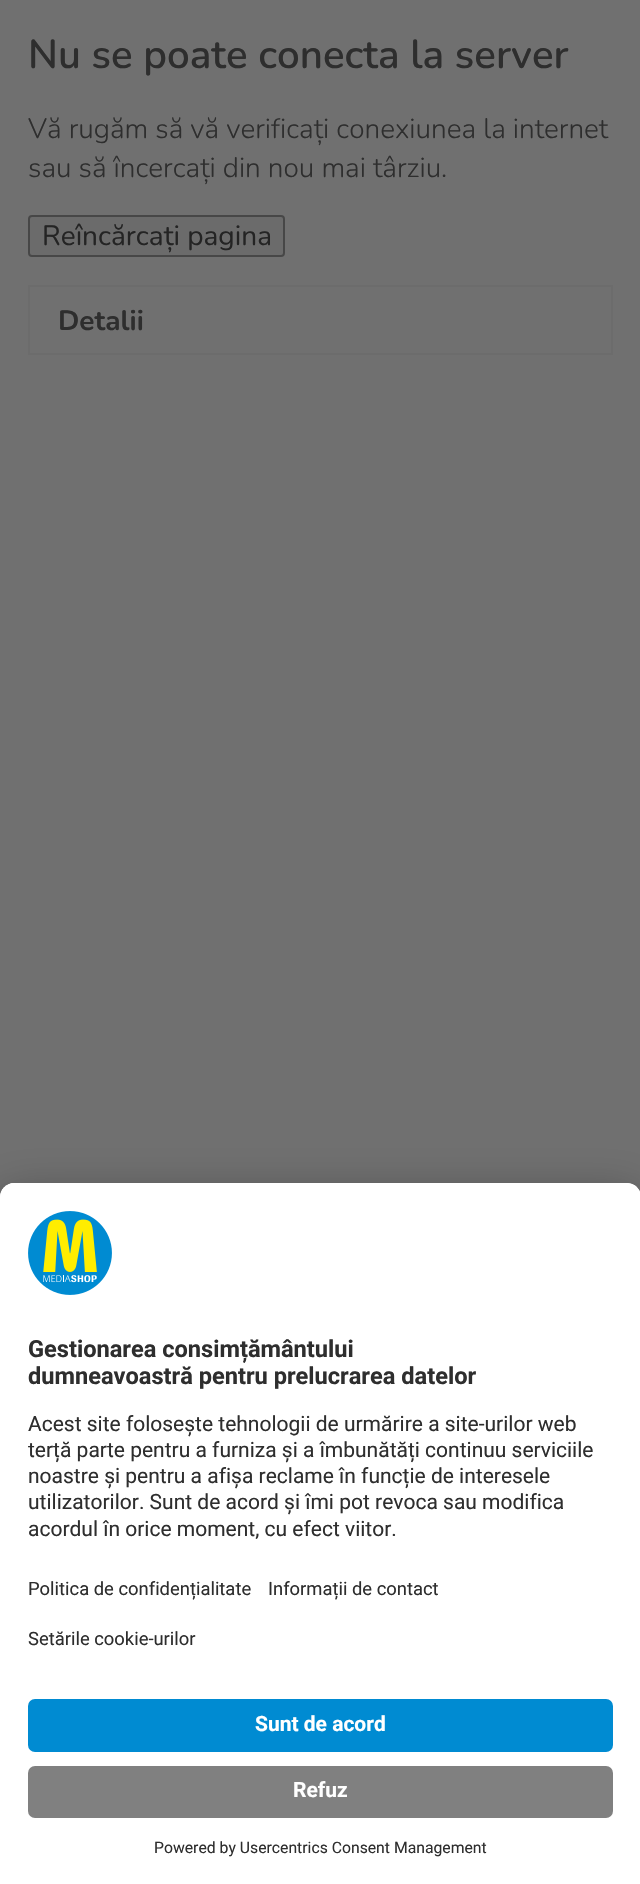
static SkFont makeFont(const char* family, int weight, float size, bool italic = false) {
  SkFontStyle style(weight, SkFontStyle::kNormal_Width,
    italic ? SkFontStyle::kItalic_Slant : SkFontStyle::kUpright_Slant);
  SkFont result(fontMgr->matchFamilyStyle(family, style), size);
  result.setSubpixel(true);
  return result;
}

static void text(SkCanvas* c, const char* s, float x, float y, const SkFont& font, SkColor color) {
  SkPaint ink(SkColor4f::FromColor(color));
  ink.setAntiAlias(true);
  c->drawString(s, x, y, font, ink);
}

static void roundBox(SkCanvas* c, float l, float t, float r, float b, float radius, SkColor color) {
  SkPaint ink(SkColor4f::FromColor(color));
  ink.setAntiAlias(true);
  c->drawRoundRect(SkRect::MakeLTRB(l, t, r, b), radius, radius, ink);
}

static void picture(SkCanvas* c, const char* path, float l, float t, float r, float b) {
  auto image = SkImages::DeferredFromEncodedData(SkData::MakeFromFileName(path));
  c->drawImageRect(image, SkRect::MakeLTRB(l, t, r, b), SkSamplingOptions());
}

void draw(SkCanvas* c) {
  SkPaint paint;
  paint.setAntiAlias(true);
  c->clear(0xff707070);
  SkFont face1 = makeFont("Nunito", 600, 40.25f);
  text(c, "Nu se poate conecta la server", 28, 68, face1, 0xff2e2e2e);
  SkFont face2 = makeFont("Nunito", 300, 28);
  text(c, "Vă rugăm să vă verificați conexiunea la internet", 28, 138, face2, 0xff2e2e2e);
  text(c, "sau să încercați din nou mai târziu.", 28, 177, face2, 0xff2e2e2e);
  paint.setColor(0xff6b6b6b);
  c->drawRoundRect(SkRect::MakeLTRB(29, 216, 284, 256), 3, 3, paint);
  paint.setStyle(SkPaint::kStroke_Style);
  paint.setStrokeWidth(2);
  paint.setColor(0xff474747);
  c->drawRoundRect(SkRect::MakeLTRB(29, 216, 284, 256), 3, 3, paint);
  SkFont face3 = makeFont("Nunito", 400, 28);
  text(c, "Reîncărcați pagina", 42, 245, face3, 0xff242424);
  paint.setColor(0xff6c6c6c);
  c->drawRect(SkRect::MakeLTRB(29, 286, 612, 354), paint);
  SkFont face4 = makeFont("Nunito", 700, 28);
  text(c, "Detalii", 58, 330, face4, 0xff2e2e2e);
  paint.setStyle(SkPaint::kFill_Style);
  paint.setColor(0x4d000000);
  paint.setMaskFilter(SkMaskFilter::MakeBlur(kNormal_SkBlurStyle, 24.5f));
  c->drawRoundRect(SkRect::MakeLTRB(0, 1218, 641, 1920), 14, 14, paint);
  paint.setMaskFilter(nullptr);
  paint.setColor(0x38000000);
  paint.setMaskFilter(SkMaskFilter::MakeBlur(kNormal_SkBlurStyle, 23));
  c->drawRoundRect(SkRect::MakeLTRB(0, 1192, 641, 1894), 14, 14, paint);
  paint.setMaskFilter(nullptr);
  paint.setColor(0xffffffff);
  c->drawPath(SkPathBuilder().moveTo(14, 1183).lineTo(627, 1183).cubicTo(634.5f, 1183, 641, 1189.5f, 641, 1197).lineTo(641, 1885).lineTo(0, 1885).lineTo(0, 1197).cubicTo(0, 1189.5f, 6.5f, 1183, 14, 1183).close().detach(), paint);
  c->drawPath(SkPathBuilder().moveTo(14, 1183).lineTo(627, 1183).cubicTo(634.5f, 1183, 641, 1189.5f, 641, 1197).lineTo(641, 1678).lineTo(0, 1678).lineTo(0, 1197).cubicTo(0, 1189.5f, 6.5f, 1183, 14, 1183).close().detach(), paint);
  picture(c, "img_01.png", 28, 1211, 112, 1295);
  SkFont face5 = makeFont("Roboto", 700, 23.6f);
  text(c, "Gestionarea consimțământului", 28, 1357, face5, 0xff2e2e2e);
  text(c, "dumneavoastră pentru prelucrarea datelor", 28, 1384, face5, 0xff2e2e2e);
  SkFont face6 = makeFont("Roboto", 400, 21);
  text(c, "Acest site folosește tehnologii de urmărire a site-urilor web", 28, 1431, face6, 0xff2e2e2e);
  text(c, "terță parte pentru a furniza și a îmbunătăți continuu serviciile", 28, 1457, face6, 0xff2e2e2e);
  text(c, "noastre și pentru a afișa reclame în funcție de interesele", 28, 1483, face6, 0xff2e2e2e);
  text(c, "utilizatorilor. Sunt de acord și îmi pot revoca sau modifica", 28, 1509, face6, 0xff2e2e2e);
  text(c, "acordul în orice moment, cu efect viitor.", 28, 1536, face6, 0xff2e2e2e);
  SkFont face7 = makeFont("Roboto", 400, 18.4f);
  text(c, "Politica de confidențialitate", 28, 1595, face7, 0xff2e2e2e);
  text(c, "Informații de contact", 268, 1595, face7, 0xff2e2e2e);
  text(c, "Setările cookie-urilor", 28, 1645, face7, 0xff2e2e2e);
  roundBox(c, 28, 1699, 613, 1752, 7, 0xff008bd2);
  SkFont face8 = makeFont("Roboto", 700, 21);
  text(c, "Sunt de acord", 255, 1731, face8, 0xffffffff);
  roundBox(c, 28, 1766, 613, 1818, 7, 0xff808080);
  text(c, "Refuz", 293, 1797, face8, 0xffffffff);
  SkFont face9 = makeFont("Roboto", 400, 15.75f);
  text(c, "Powered by Usercentrics Consent Management", 154, 1853, face9, 0xff2e2e2e);
}
